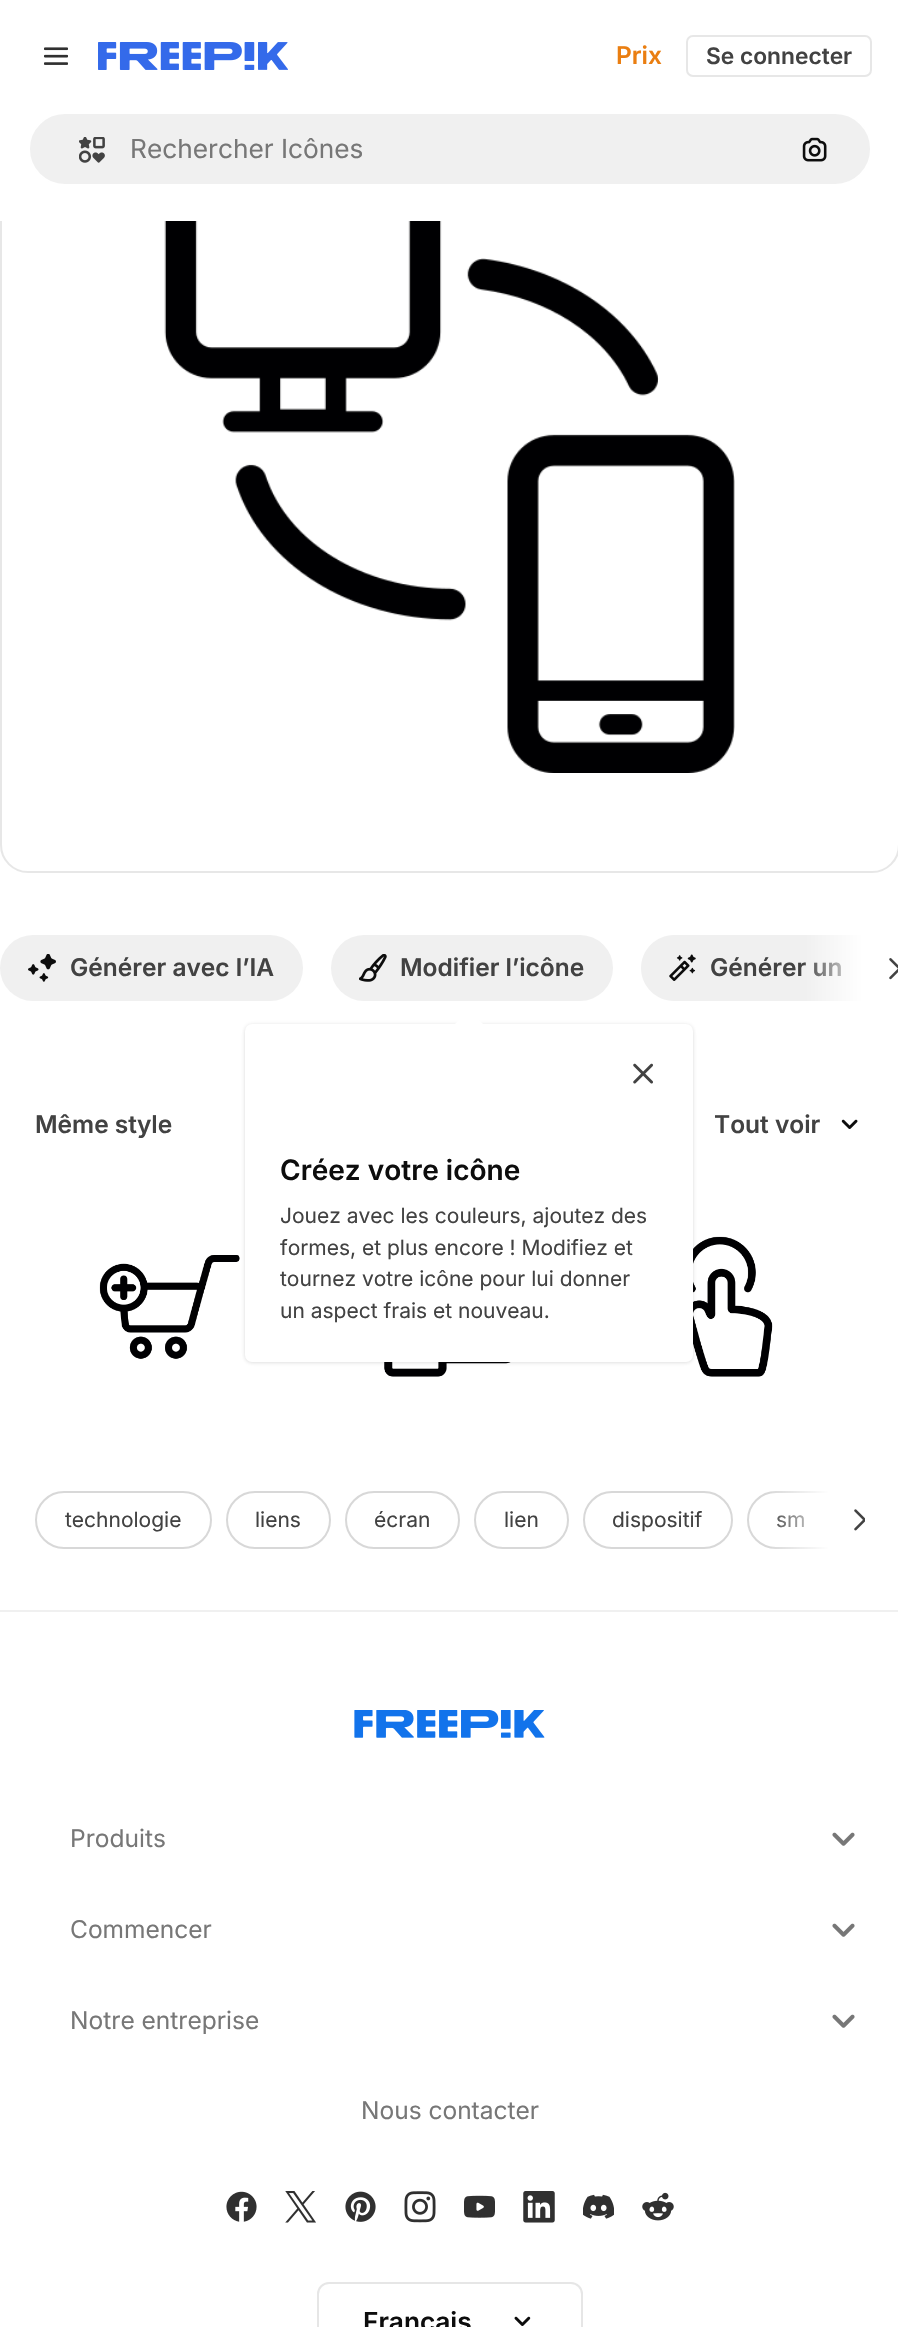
static SkFont makeFont(const char* family, int weight, float size, bool italic = false) {
  SkFontStyle style(weight, SkFontStyle::kNormal_Width,
    italic ? SkFontStyle::kItalic_Slant : SkFontStyle::kUpright_Slant);
  SkFont result(fontMgr->matchFamilyStyle(family, style), size);
  result.setSubpixel(true);
  return result;
}

static void text(SkCanvas* c, const char* s, float x, float y, const SkFont& font, SkColor color) {
  SkPaint ink(SkColor4f::FromColor(color));
  ink.setAntiAlias(true);
  c->drawString(s, x, y, font, ink);
}

static void box(SkCanvas* c, float l, float t, float r, float b, SkColor color) {
  SkPaint ink(SkColor4f::FromColor(color));
  ink.setAntiAlias(true);
  c->drawRect(SkRect::MakeLTRB(l, t, r, b), ink);
}

static void roundBox(SkCanvas* c, float l, float t, float r, float b, float radius, SkColor color) {
  SkPaint ink(SkColor4f::FromColor(color));
  ink.setAntiAlias(true);
  c->drawRoundRect(SkRect::MakeLTRB(l, t, r, b), radius, radius, ink);
}

static void picture(SkCanvas* c, const char* path, float l, float t, float r, float b) {
  auto image = SkImages::DeferredFromEncodedData(SkData::MakeFromFileName(path));
  c->drawImageRect(image, SkRect::MakeLTRB(l, t, r, b), SkSamplingOptions());
}

void draw(SkCanvas* c) {
  SkPaint paint;
  paint.setAntiAlias(true);
  c->clear(0xffffffff);
  paint.setStyle(SkPaint::kStroke_Style);
  paint.setStrokeWidth(2);
  paint.setColor(0xffe7e7e7);
  c->drawRoundRect(SkRect::MakeLTRB(1, 59, 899, 872), 27, 27, paint);
  box(c, 0, 58, 898, 221, 0xffffffff);
  picture(c, "img_01.png", 44, 47, 68, 65);
  picture(c, "img_02.png", 98, 42, 288, 70);
  SkFont face1 = makeFont("Inter", 600, 24.5f);
  text(c, "Prix", 616, 64, face1, 0xffea7e11);
  c->drawRoundRect(SkRect::MakeLTRB(687, 36, 871, 76), 6, 6, paint);
  SkFont face2 = makeFont("Inter", 600, 22.75f);
  text(c, "Se connecter", 706, 64, face2, 0xff424242);
  paint.setStyle(SkPaint::kFill_Style);
  paint.setColor(0xfff0f0f0);
  c->drawRoundRect(SkRect::MakeLTRB(29, 113, 871, 185), 36, 36, paint);
  paint.setStyle(SkPaint::kStroke_Style);
  paint.setColor(0xffffffff);
  c->drawRoundRect(SkRect::MakeLTRB(29, 113, 871, 185), 36, 36, paint);
  picture(c, "img_03.png", 79, 137, 105, 163);
  SkFont face3 = makeFont("Inter", 400, 26.25f);
  text(c, "Rechercher Icônes", 130, 158, face3, 0xff777777);
  picture(c, "img_04.png", 802, 137, 827, 162);
  picture(c, "img_05.png", 164, 221, 735, 773);
  roundBox(c, 0, 935, 303, 1001, 33, 0xfff0f0f0);
  picture(c, "img_06.png", 28, 954, 56, 982);
  text(c, "Générer avec l’IA", 70, 976, face1, 0xff424242);
  roundBox(c, 331, 935, 613, 1001, 33, 0xfff0f0f0);
  picture(c, "img_07.png", 359, 954, 387, 982);
  text(c, "Modifier l’icône", 400, 976, face1, 0xff424242);
  paint.setStyle(SkPaint::kFill_Style);
  paint.setColor(0xfff0f0f0);
  c->drawPath(SkPathBuilder().moveTo(674, 935).lineTo(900, 935).lineTo(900, 1001).lineTo(674, 1001).cubicTo(656, 1001, 641, 986, 641, 968).cubicTo(641, 950, 656, 935, 674, 935).close().detach(), paint);
  picture(c, "img_08.png", 669, 954, 696, 981);
  text(c, "Générer un", 710, 976, face1, 0xff424242);
  box(c, 865, 935, 898, 1001, 0xffffffff);
  {
    const SkColor colors[] = {0xffffffff, 0x00ffffff};
    const float stops[] = {0, 1};
    const SkPoint ends[] = {{865, 968}, {803, 968}};
    paint.setShader(SkGradientShader::MakeLinear(ends, colors, stops, 2, SkTileMode::kClamp));
    paint.setAlpha(255);
  }
  c->drawRect(SkRect::MakeLTRB(804, 935, 865, 1001), paint);
  picture(c, "img_09.png", 889, 958, 898, 980);
  picture(c, "img_12.png", 99, 1255, 240, 1359);
  picture(c, "img_13.png", 693, 1236, 773, 1377);
  picture(c, "img_14.png", 384, 1362, 511, 1377);
  paint.setShader(nullptr);
  paint.setColor(0x14121212);
  paint.setMaskFilter(SkMaskFilter::MakeBlur(kNormal_SkBlurStyle, 2));
  c->drawRoundRect(SkRect::MakeLTRB(245, 1026, 693, 1363), 7, 7, paint);
  paint.setMaskFilter(nullptr);
  paint.setMaskFilter(SkMaskFilter::MakeBlur(kNormal_SkBlurStyle, 2));
  c->drawRoundRect(SkRect::MakeLTRB(245, 1024, 693, 1362), 7, 7, paint);
  paint.setMaskFilter(nullptr);
  roundBox(c, 245, 1024, 693, 1362, 7, 0xffffffff);
  paint.setColor(0xffffffff);
  c->drawPath(SkPathBuilder().moveTo(483, 1024).lineTo(455, 1024).lineTo(469, 1010).close().detach(), paint);
  picture(c, "img_10.png", 633, 1063, 653, 1084);
  SkFont face4 = makeFont("Inter", 600, 28);
  text(c, "Créez votre icône", 280, 1180, face4, 0xff0d0d0d);
  SkFont face5 = makeFont("Inter", 400, 21);
  text(c, "Jouez avec les couleurs, ajoutez des", 280, 1223, face5, 0xff424242);
  text(c, "formes, et plus encore ! Modifiez et", 280, 1255, face5, 0xff424242);
  text(c, "tournez votre icône pour lui donner", 280, 1286, face5, 0xff424242);
  text(c, "un aspect frais et nouveau.", 280, 1318, face5, 0xff424242);
  text(c, "Même style", 35, 1133, face1, 0xff424242);
  text(c, "Tout voir", 714, 1133, face1, 0xff424242);
  picture(c, "img_11.png", 841, 1119, 858, 1129);
  paint.setStyle(SkPaint::kStroke_Style);
  paint.setColor(0xffd8d8d8);
  c->drawRoundRect(SkRect::MakeLTRB(36, 1492, 211, 1548), 28, 28, paint);
  text(c, "technologie", 65, 1527, face5, 0xff424242);
  c->drawRoundRect(SkRect::MakeLTRB(227, 1492, 330, 1548), 28, 28, paint);
  text(c, "liens", 255, 1527, face5, 0xff424242);
  c->drawRoundRect(SkRect::MakeLTRB(346, 1492, 459, 1548), 28, 28, paint);
  text(c, "écran", 374, 1527, face5, 0xff424242);
  c->drawRoundRect(SkRect::MakeLTRB(475, 1492, 568, 1548), 28, 28, paint);
  text(c, "lien", 504, 1527, face5, 0xff424242);
  c->drawRoundRect(SkRect::MakeLTRB(584, 1492, 732, 1548), 28, 28, paint);
  text(c, "dispositif", 612, 1527, face5, 0xff424242);
  c->save();
  c->clipRect(SkRect::MakeLTRB(35, 1491, 865, 1549));
  c->drawRoundRect(SkRect::MakeLTRB(748, 1492, 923, 1548), 28, 28, paint);
  c->restore();
  text(c, "sm", 776, 1527, face5, 0xff424242);
  box(c, 830, 1491, 865, 1549, 0xffffffff);
  paint.setStyle(SkPaint::kFill_Style);
  {
    const SkColor colors[] = {0xffffffff, 0x00ffffff};
    const float stops[] = {0, 1};
    const SkPoint ends[] = {{830, 1520}, {768, 1520}};
    paint.setShader(SkGradientShader::MakeLinear(ends, colors, stops, 2, SkTileMode::kClamp));
    paint.setAlpha(255);
  }
  c->drawRect(SkRect::MakeLTRB(772, 1491, 830, 1549), paint);
  picture(c, "img_15.png", 854, 1509, 865, 1531);
  box(c, 0, 1610, 898, 1612, 0xfff0f0f0);
  picture(c, "img_16.png", 354, 1710, 545, 1738);
  SkFont face6 = makeFont("Inter", 400, 24.5f);
  text(c, "Produits", 70, 1847, face6, 0xff777777);
  picture(c, "img_17.png", 832, 1832, 855, 1846);
  text(c, "Commencer", 70, 1938, face6, 0xff777777);
  picture(c, "img_17.png", 832, 1923, 855, 1937);
  text(c, "Notre entreprise", 70, 2029, face6, 0xff777777);
  picture(c, "img_17.png", 832, 2014, 855, 2028);
  text(c, "Nous contacter", 361, 2119, face6, 0xff777777);
  picture(c, "img_18.png", 226, 2191, 257, 2222);
  picture(c, "img_19.png", 285, 2191, 316, 2223);
  picture(c, "img_20.png", 345, 2191, 376, 2222);
  picture(c, "img_21.png", 404, 2191, 436, 2223);
  picture(c, "img_22.png", 464, 2195, 495, 2218);
  picture(c, "img_23.png", 523, 2191, 555, 2223);
  picture(c, "img_24.png", 583, 2194, 614, 2219);
  picture(c, "img_25.png", 642, 2192, 674, 2221);
  paint.setStyle(SkPaint::kStroke_Style);
  paint.setShader(nullptr);
  paint.setColor(0xffe6e6e6);
  c->drawRoundRect(SkRect::MakeLTRB(318, 2283, 582, 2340), 11, 11, paint);
  SkFont face7 = makeFont("Inter", 600, 26.25f);
  text(c, "Français", 363, 2331, face7, 0xff0d0d0d);
  picture(c, "img_26.png", 514, 2316, 531, 2326);
}
